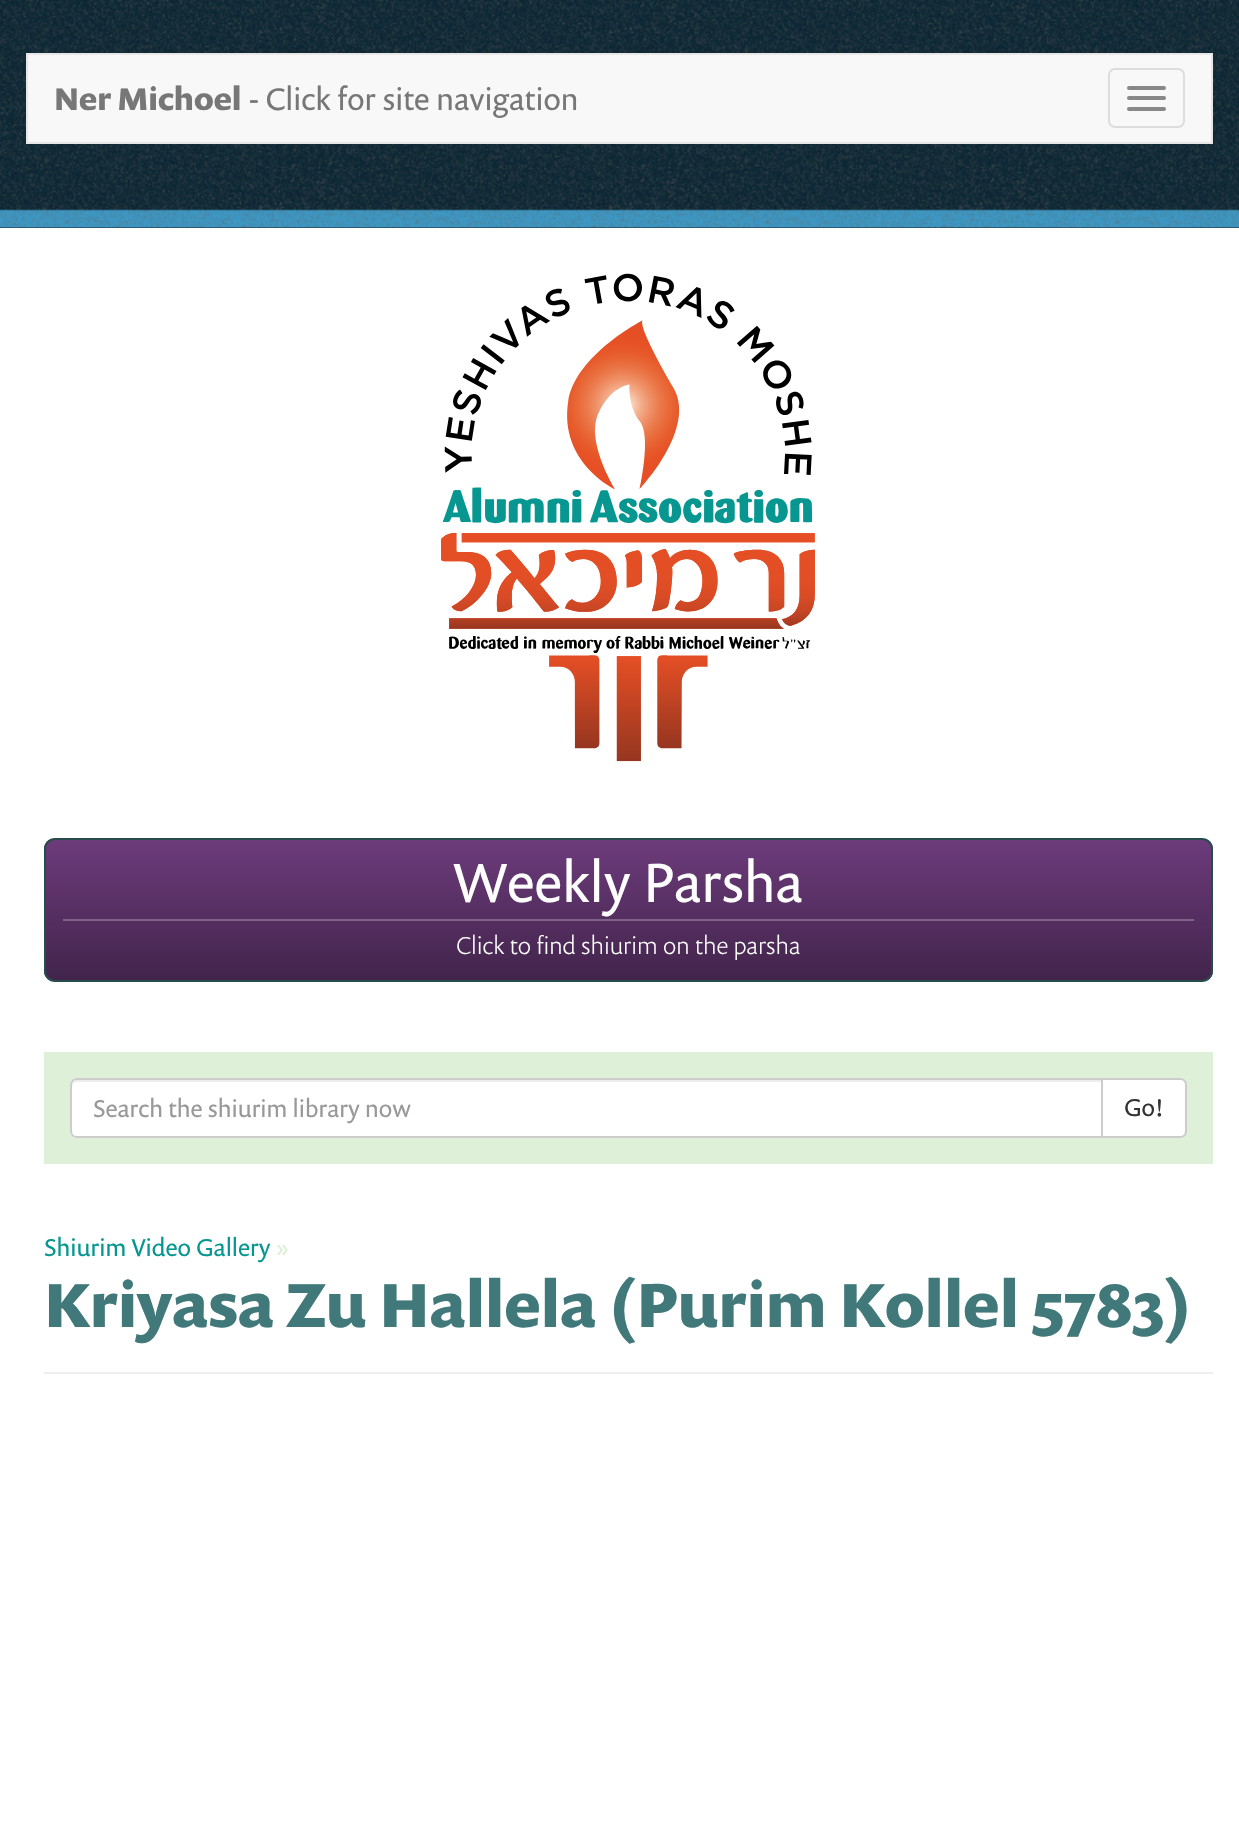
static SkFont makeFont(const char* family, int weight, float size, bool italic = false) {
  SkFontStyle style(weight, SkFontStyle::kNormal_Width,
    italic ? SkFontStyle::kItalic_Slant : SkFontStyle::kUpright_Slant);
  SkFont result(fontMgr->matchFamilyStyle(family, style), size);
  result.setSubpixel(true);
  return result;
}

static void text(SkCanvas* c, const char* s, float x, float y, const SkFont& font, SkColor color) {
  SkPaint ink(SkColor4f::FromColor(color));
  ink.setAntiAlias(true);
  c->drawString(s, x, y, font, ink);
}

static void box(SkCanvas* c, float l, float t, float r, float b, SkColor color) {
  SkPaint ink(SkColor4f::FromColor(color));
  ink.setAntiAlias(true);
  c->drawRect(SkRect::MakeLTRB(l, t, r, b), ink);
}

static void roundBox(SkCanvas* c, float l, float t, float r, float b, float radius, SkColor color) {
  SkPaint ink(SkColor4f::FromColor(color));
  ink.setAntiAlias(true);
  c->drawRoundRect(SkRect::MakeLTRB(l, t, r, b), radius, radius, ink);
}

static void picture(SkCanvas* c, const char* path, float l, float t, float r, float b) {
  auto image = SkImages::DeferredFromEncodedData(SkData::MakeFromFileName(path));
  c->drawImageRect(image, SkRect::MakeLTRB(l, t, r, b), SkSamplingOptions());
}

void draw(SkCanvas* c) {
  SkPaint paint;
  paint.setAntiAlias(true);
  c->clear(0xffffffff);
  box(c, 0, 227, 1239, 228, 0xff112233);
  picture(c, "img_01.png", 0, 0, 1239, 228);
  paint.setColor(0xfff8f8f8);
  c->drawRect(SkRect::MakeLTRB(27, 54, 1212, 143), paint);
  paint.setStyle(SkPaint::kStroke_Style);
  paint.setStrokeWidth(2);
  paint.setColor(0xffe7e7e7);
  c->drawRect(SkRect::MakeLTRB(27, 54, 1212, 143), paint);
  SkFont face1 = makeFont("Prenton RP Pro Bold", 700, 31.5f);
  text(c, "Ner Michoel", 54, 110, face1, 0xff777777);
  SkFont face2 = makeFont("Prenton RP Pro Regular", 400, 31.5f);
  text(c, "- Click for site navigation", 249, 110, face2, 0xff777777);
  paint.setColor(0xffdddddd);
  c->drawRoundRect(SkRect::MakeLTRB(1109, 69, 1184, 127), 6, 6, paint);
  roundBox(c, 1127, 86, 1166, 90, 2, 0xff888888);
  roundBox(c, 1127, 96, 1166, 100, 2, 0xff888888);
  roundBox(c, 1127, 107, 1166, 111, 2, 0xff888888);
  picture(c, "img_02.png", 441, 273, 815, 762);
  c->save();
  c->clipPath(SkPathBuilder().moveTo(55, 838).lineTo(1202, 838).cubicTo(1208, 838, 1213, 843, 1213, 849).lineTo(1213, 971).cubicTo(1213, 977, 1208, 982, 1202, 982).lineTo(55, 982).cubicTo(49, 982, 44, 977, 44, 971).lineTo(44, 849).cubicTo(44, 843, 49, 838, 55, 838).close().detach(), true);
  paint.setStyle(SkPaint::kFill_Style);
  {
    const SkColor colors[] = {0xff6c3b7b, 0xff42244b};
    const float stops[] = {0, 1};
    const SkPoint ends[] = {{628, 840}, {628, 980}};
    paint.setShader(SkGradientShader::MakeLinear(ends, colors, stops, 2, SkTileMode::kClamp));
    paint.setAlpha(255);
  }
  c->drawRect(SkRect::MakeLTRB(44, 840, 1213, 980), paint);
  c->restore();
  paint.setStyle(SkPaint::kStroke_Style);
  paint.setShader(nullptr);
  paint.setColor(0xff284b4c);
  c->drawRoundRect(SkRect::MakeLTRB(45, 839, 1212, 981), 10, 10, paint);
  box(c, 63, 919, 1194, 921, 0xff7f6287);
  SkFont face3 = makeFont("Prenton RP Pro Regular", 400, 56);
  text(c, "Weekly Parsha", 453, 902, face3, 0xffffffff);
  SkFont face4 = makeFont("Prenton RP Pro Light", 300, 24.5f);
  text(c, "Click to find shiurim on the parsha", 456, 954, face4, 0xffffffff);
  box(c, 44, 1052, 1213, 1164, 0xffdff0d8);
  paint.setStyle(SkPaint::kFill_Style);
  paint.setColor(0xffffffff);
  c->drawPath(SkPathBuilder().moveTo(1102, 1079).lineTo(1180, 1079).cubicTo(1183.5f, 1079, 1186, 1081.5f, 1186, 1085).lineTo(1186, 1131).cubicTo(1186, 1134.5f, 1183.5f, 1137, 1180, 1137).lineTo(1102, 1137).close().detach(), paint);
  paint.setStyle(SkPaint::kStroke_Style);
  paint.setColor(0xffcccccc);
  c->drawPath(SkPathBuilder().moveTo(1102, 1079).lineTo(1180, 1079).cubicTo(1183.5f, 1079, 1186, 1081.5f, 1186, 1085).lineTo(1186, 1131).cubicTo(1186, 1134.5f, 1183.5f, 1137, 1180, 1137).lineTo(1102, 1137).close().detach(), paint);
  paint.setStyle(SkPaint::kFill_Style);
  paint.setColor(0xffffffff);
  c->drawPath(SkPathBuilder().moveTo(77, 1078).lineTo(1103, 1078).lineTo(1103, 1138).lineTo(77, 1138).cubicTo(73, 1138, 70, 1135, 70, 1131).lineTo(70, 1085).cubicTo(70, 1081, 73, 1078, 77, 1078).close().detach(), paint);
  paint.setColor(0xffececec);
  c->drawPath(SkPathBuilder().moveTo(77, 1082).lineTo(1101, 1082).lineTo(1101, 1080).lineTo(77, 1080).cubicTo(74, 1080, 72, 1082, 72, 1085).lineTo(72, 1087).cubicTo(72, 1084, 74, 1082, 77, 1082).close().detach(), paint);
  paint.setStyle(SkPaint::kStroke_Style);
  paint.setColor(0xffcccccc);
  c->drawPath(SkPathBuilder().moveTo(77, 1079).lineTo(1102, 1079).lineTo(1102, 1137).lineTo(77, 1137).cubicTo(73.5f, 1137, 71, 1134.5f, 71, 1131).lineTo(71, 1085).cubicTo(71, 1081.5f, 73.5f, 1079, 77, 1079).close().detach(), paint);
  SkFont face5 = makeFont("Prenton RP Pro Regular", 400, 24.5f);
  text(c, "Search the shiurim library now", 93, 1117, face5, 0xff999999);
  text(c, "Go!", 1124, 1116, face5, 0xff333333);
  box(c, 44, 1372, 1213, 1374, 0xffeeeeee);
  text(c, "Shiurim Video Gallery", 44, 1256, face5, 0xff079790);
  text(c, "»", 276, 1256, face5, 0xffdff0d8);
  SkFont face6 = makeFont("Prenton RP Pro Bold", 700, 63);
  text(c, "Kriyasa Zu Hallela (Purim Kollel 5783)", 44, 1327, face6, 0xff41797b);
}
